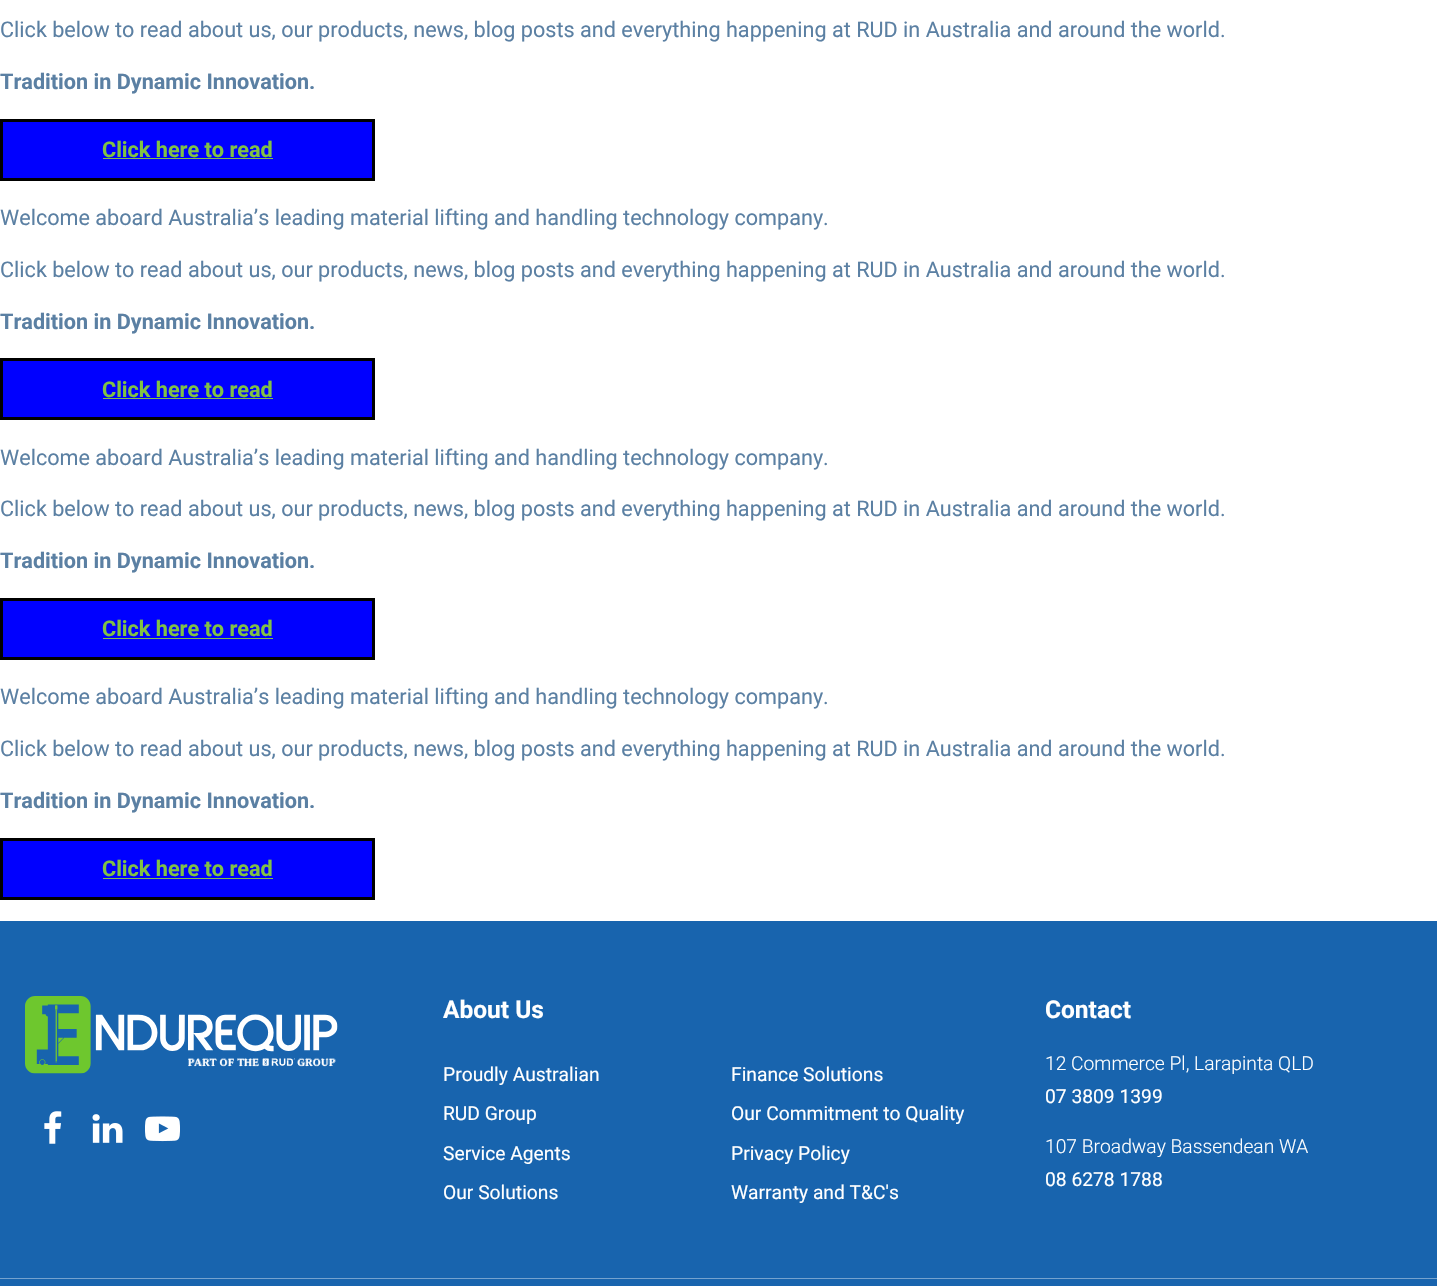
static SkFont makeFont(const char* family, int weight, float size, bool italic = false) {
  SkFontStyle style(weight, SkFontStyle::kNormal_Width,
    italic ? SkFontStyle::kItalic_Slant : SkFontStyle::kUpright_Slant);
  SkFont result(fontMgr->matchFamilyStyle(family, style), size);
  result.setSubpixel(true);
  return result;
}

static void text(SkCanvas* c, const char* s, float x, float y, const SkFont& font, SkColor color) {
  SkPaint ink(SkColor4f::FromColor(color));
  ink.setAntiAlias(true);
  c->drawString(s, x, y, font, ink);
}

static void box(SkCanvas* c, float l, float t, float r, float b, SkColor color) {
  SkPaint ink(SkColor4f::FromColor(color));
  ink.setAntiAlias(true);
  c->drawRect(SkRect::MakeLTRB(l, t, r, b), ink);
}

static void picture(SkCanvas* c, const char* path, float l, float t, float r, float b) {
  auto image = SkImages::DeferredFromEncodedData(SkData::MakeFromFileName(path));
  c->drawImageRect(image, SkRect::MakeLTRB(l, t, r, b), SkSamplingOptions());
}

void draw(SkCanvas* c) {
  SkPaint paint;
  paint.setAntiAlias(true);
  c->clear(0xffffffff);
  SkFont face1 = makeFont("Roboto", 400, 21.62f);
  text(c, "Click below to read about us, our products, news, blog posts and everything happening at RUD in Australia and around the world.", 0, 37, face1, 0xff5b80a3);
  SkFont face2 = makeFont("Roboto", 700, 21.62f);
  text(c, "Tradition in Dynamic Innovation.", 0, 89, face2, 0xff5b80a3);
  paint.setColor(0xff0000ff);
  c->drawRect(SkRect::MakeLTRB(1.5f, 120.5f, 373.5f, 179.5f), paint);
  paint.setStyle(SkPaint::kStroke_Style);
  paint.setStrokeWidth(3);
  paint.setColor(0xff000000);
  c->drawRect(SkRect::MakeLTRB(1.5f, 120.5f, 373.5f, 179.5f), paint);
  text(c, "Click here to read", 102, 157, face2, 0xff81c145);
  box(c, 103, 158, 273, 159, 0xff81c145);
  text(c, "Welcome aboard Australia’s leading material lifting and handling technology company.", 0, 225, face1, 0xff5b80a3);
  text(c, "Click below to read about us, our products, news, blog posts and everything happening at RUD in Australia and around the world.", 0, 277, face1, 0xff5b80a3);
  text(c, "Tradition in Dynamic Innovation.", 0, 329, face2, 0xff5b80a3);
  paint.setStyle(SkPaint::kFill_Style);
  paint.setColor(0xff0000ff);
  c->drawRect(SkRect::MakeLTRB(1.5f, 359.5f, 373.5f, 418.5f), paint);
  paint.setStyle(SkPaint::kStroke_Style);
  paint.setColor(0xff000000);
  c->drawRect(SkRect::MakeLTRB(1.5f, 359.5f, 373.5f, 418.5f), paint);
  text(c, "Click here to read", 102, 397, face2, 0xff81c145);
  box(c, 103, 398, 273, 399, 0xff81c145);
  text(c, "Welcome aboard Australia’s leading material lifting and handling technology company.", 0, 465, face1, 0xff5b80a3);
  text(c, "Click below to read about us, our products, news, blog posts and everything happening at RUD in Australia and around the world.", 0, 516, face1, 0xff5b80a3);
  text(c, "Tradition in Dynamic Innovation.", 0, 568, face2, 0xff5b80a3);
  paint.setStyle(SkPaint::kFill_Style);
  paint.setColor(0xff0000ff);
  c->drawRect(SkRect::MakeLTRB(1.5f, 599.5f, 373.5f, 658.5f), paint);
  paint.setStyle(SkPaint::kStroke_Style);
  paint.setColor(0xff000000);
  c->drawRect(SkRect::MakeLTRB(1.5f, 599.5f, 373.5f, 658.5f), paint);
  text(c, "Click here to read", 102, 636, face2, 0xff81c145);
  box(c, 103, 638, 273, 639, 0xff81c145);
  text(c, "Welcome aboard Australia’s leading material lifting and handling technology company.", 0, 704, face1, 0xff5b80a3);
  text(c, "Click below to read about us, our products, news, blog posts and everything happening at RUD in Australia and around the world.", 0, 756, face1, 0xff5b80a3);
  text(c, "Tradition in Dynamic Innovation.", 0, 808, face2, 0xff5b80a3);
  paint.setStyle(SkPaint::kFill_Style);
  paint.setColor(0xff0000ff);
  c->drawRect(SkRect::MakeLTRB(1.5f, 839.5f, 373.5f, 898.5f), paint);
  paint.setStyle(SkPaint::kStroke_Style);
  paint.setColor(0xff000000);
  c->drawRect(SkRect::MakeLTRB(1.5f, 839.5f, 373.5f, 898.5f), paint);
  text(c, "Click here to read", 102, 876, face2, 0xff81c145);
  box(c, 103, 878, 273, 879, 0xff81c145);
  box(c, 0, 921, 1437, 1278, 0xff1864ae);
  picture(c, "img_01.png", 25, 996, 338, 1074);
  picture(c, "img_02.png", 44, 1111, 62, 1144);
  picture(c, "img_03.png", 92, 1114, 123, 1143);
  picture(c, "img_04.png", 145, 1116, 180, 1142);
  SkFont face3 = makeFont("Roboto", 700, 24.5f);
  text(c, "About Us", 443, 1018, face3, 0xffffffff);
  SkFont face4 = makeFont("Roboto", 400, 19.25f);
  text(c, "Proudly Australian", 443, 1081, face4, 0xffffffff);
  text(c, "RUD Group", 443, 1120, face4, 0xffffffff);
  text(c, "Service Agents", 443, 1160, face4, 0xffffffff);
  text(c, "Our Solutions", 443, 1199, face4, 0xffffffff);
  text(c, "Finance Solutions", 731, 1081, face4, 0xffffffff);
  text(c, "Our Commitment to Quality", 731, 1120, face4, 0xffffffff);
  text(c, "Privacy Policy", 731, 1160, face4, 0xffffffff);
  text(c, "Warranty and T&C's", 731, 1199, face4, 0xffffffff);
  text(c, "Contact", 1045, 1018, face3, 0xffffffff);
  SkFont face5 = makeFont("Roboto", 300, 19.25f);
  text(c, "12 Commerce Pl, Larapinta QLD", 1045, 1070, face5, 0xffffffff);
  text(c, "07 3809 1399", 1045, 1103, face4, 0xffffffff);
  text(c, "107 Broadway Bassendean WA", 1045, 1153, face5, 0xffffffff);
  text(c, "08 6278 1788", 1045, 1186, face4, 0xffffffff);
  box(c, 0, 1279, 1437, 1286, 0xff1864ae);
  box(c, 0, 1278, 1437, 1279, 0xff74a2ce);
}
